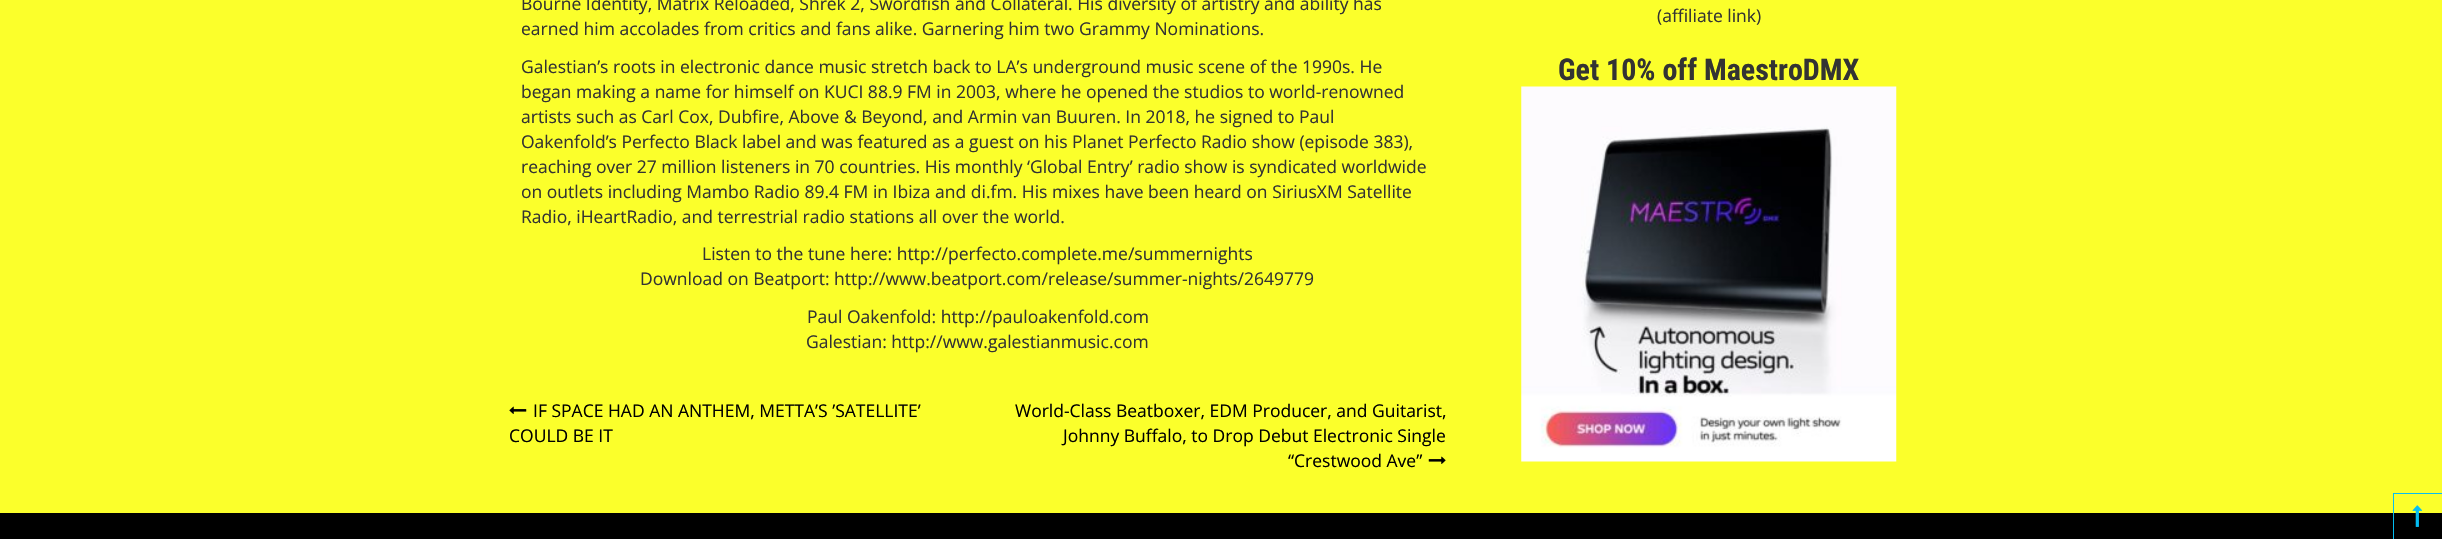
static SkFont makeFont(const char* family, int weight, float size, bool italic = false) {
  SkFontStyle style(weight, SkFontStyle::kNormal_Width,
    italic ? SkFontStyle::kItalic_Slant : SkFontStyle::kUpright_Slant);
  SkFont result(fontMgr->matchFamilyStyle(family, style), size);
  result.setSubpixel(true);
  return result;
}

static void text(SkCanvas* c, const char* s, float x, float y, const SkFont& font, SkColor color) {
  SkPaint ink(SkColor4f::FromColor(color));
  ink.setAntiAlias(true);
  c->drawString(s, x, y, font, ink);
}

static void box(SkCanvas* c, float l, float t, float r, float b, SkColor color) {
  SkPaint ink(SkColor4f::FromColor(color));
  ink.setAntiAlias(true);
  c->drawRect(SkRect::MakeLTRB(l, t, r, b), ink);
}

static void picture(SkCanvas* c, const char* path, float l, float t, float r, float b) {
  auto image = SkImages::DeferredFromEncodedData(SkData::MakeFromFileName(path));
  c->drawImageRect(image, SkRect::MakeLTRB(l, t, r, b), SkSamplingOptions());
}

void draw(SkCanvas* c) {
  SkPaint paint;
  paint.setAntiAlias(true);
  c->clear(0xfffbff2b);
  SkFont face1 = makeFont("Open Sans", 400, 17.5f);
  text(c, "Bourne Identity, Matrix Reloaded, Shrek 2, Swordfish and Collateral. His diversity of artistry and ability has", 521, 10, face1, 0xff333333);
  text(c, "earned him accolades from critics and fans alike. Garnering him two Grammy Nominations.", 521, 35, face1, 0xff333333);
  text(c, "Galestian’s roots in electronic dance music stretch back to LA’s underground music scene of the 1990s. He", 521, 73, face1, 0xff333333);
  text(c, "began making a name for himself on KUCI 88.9 FM in 2003, where he opened the studios to world-renowned", 521, 98, face1, 0xff333333);
  text(c, "artists such as Carl Cox, Dubfire, Above & Beyond, and Armin van Buuren. In 2018, he signed to Paul", 521, 123, face1, 0xff333333);
  text(c, "Oakenfold’s Perfecto Black label and was featured as a guest on his Planet Perfecto Radio show (episode 383),", 521, 148, face1, 0xff333333);
  text(c, "reaching over 27 million listeners in 70 countries. His monthly ‘Global Entry’ radio show is syndicated worldwide", 521, 173, face1, 0xff333333);
  text(c, "on outlets including Mambo Radio 89.4 FM in Ibiza and di.fm. His mixes have been heard on SiriusXM Satellite", 521, 198, face1, 0xff333333);
  text(c, "Radio, iHeartRadio, and terrestrial radio stations all over the world.", 521, 223, face1, 0xff333333);
  text(c, "Listen to the tune here: http://perfecto.complete.me/summernights", 702, 260, face1, 0xff333333);
  text(c, "Download on Beatport: http://www.beatport.com/release/summer-nights/2649779", 640, 285, face1, 0xff333333);
  text(c, "Paul Oakenfold: http://pauloakenfold.com", 807, 323, face1, 0xff333333);
  text(c, "Galestian: http://www.galestianmusic.com", 806, 348, face1, 0xff333333);
  picture(c, "img_01.png", 509, 406, 527, 414);
  text(c, "IF SPACE HAD AN ANTHEM, METTA’S ’SATELLITE’", 533, 417, face1, 0xff000000);
  text(c, "COULD BE IT", 509, 442, face1, 0xff000000);
  text(c, "World-Class Beatboxer, EDM Producer, and Guitarist,", 1015, 417, face1, 0xff000000);
  text(c, "Johnny Buffalo, to Drop Debut Electronic Single", 1063, 442, face1, 0xff000000);
  text(c, "“Crestwood Ave”", 1288, 467, face1, 0xff000000);
  picture(c, "img_02.png", 1428, 456, 1446, 464);
  text(c, "(affiliate link)", 1657, 22, face1, 0xff333333);
  SkFont face2 = makeFont("Roboto Condensed", 700, 30);
  text(c, "Get 10% off MaestroDMX", 1558, 80, face2, 0xff333333);
  picture(c, "img_03.png", 1521, 86, 1897, 462);
  box(c, 0, 513, 2442, 539, 0xff000000);
  paint.setStyle(SkPaint::kStroke_Style);
  paint.setStrokeWidth(1);
  paint.setColor(0xfc04bef4);
  c->drawRect(SkRect::MakeLTRB(2393.5f, 493.5f, 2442.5f, 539.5f), paint);
  picture(c, "img_04.png", 2412, 505, 2423, 527);
}
